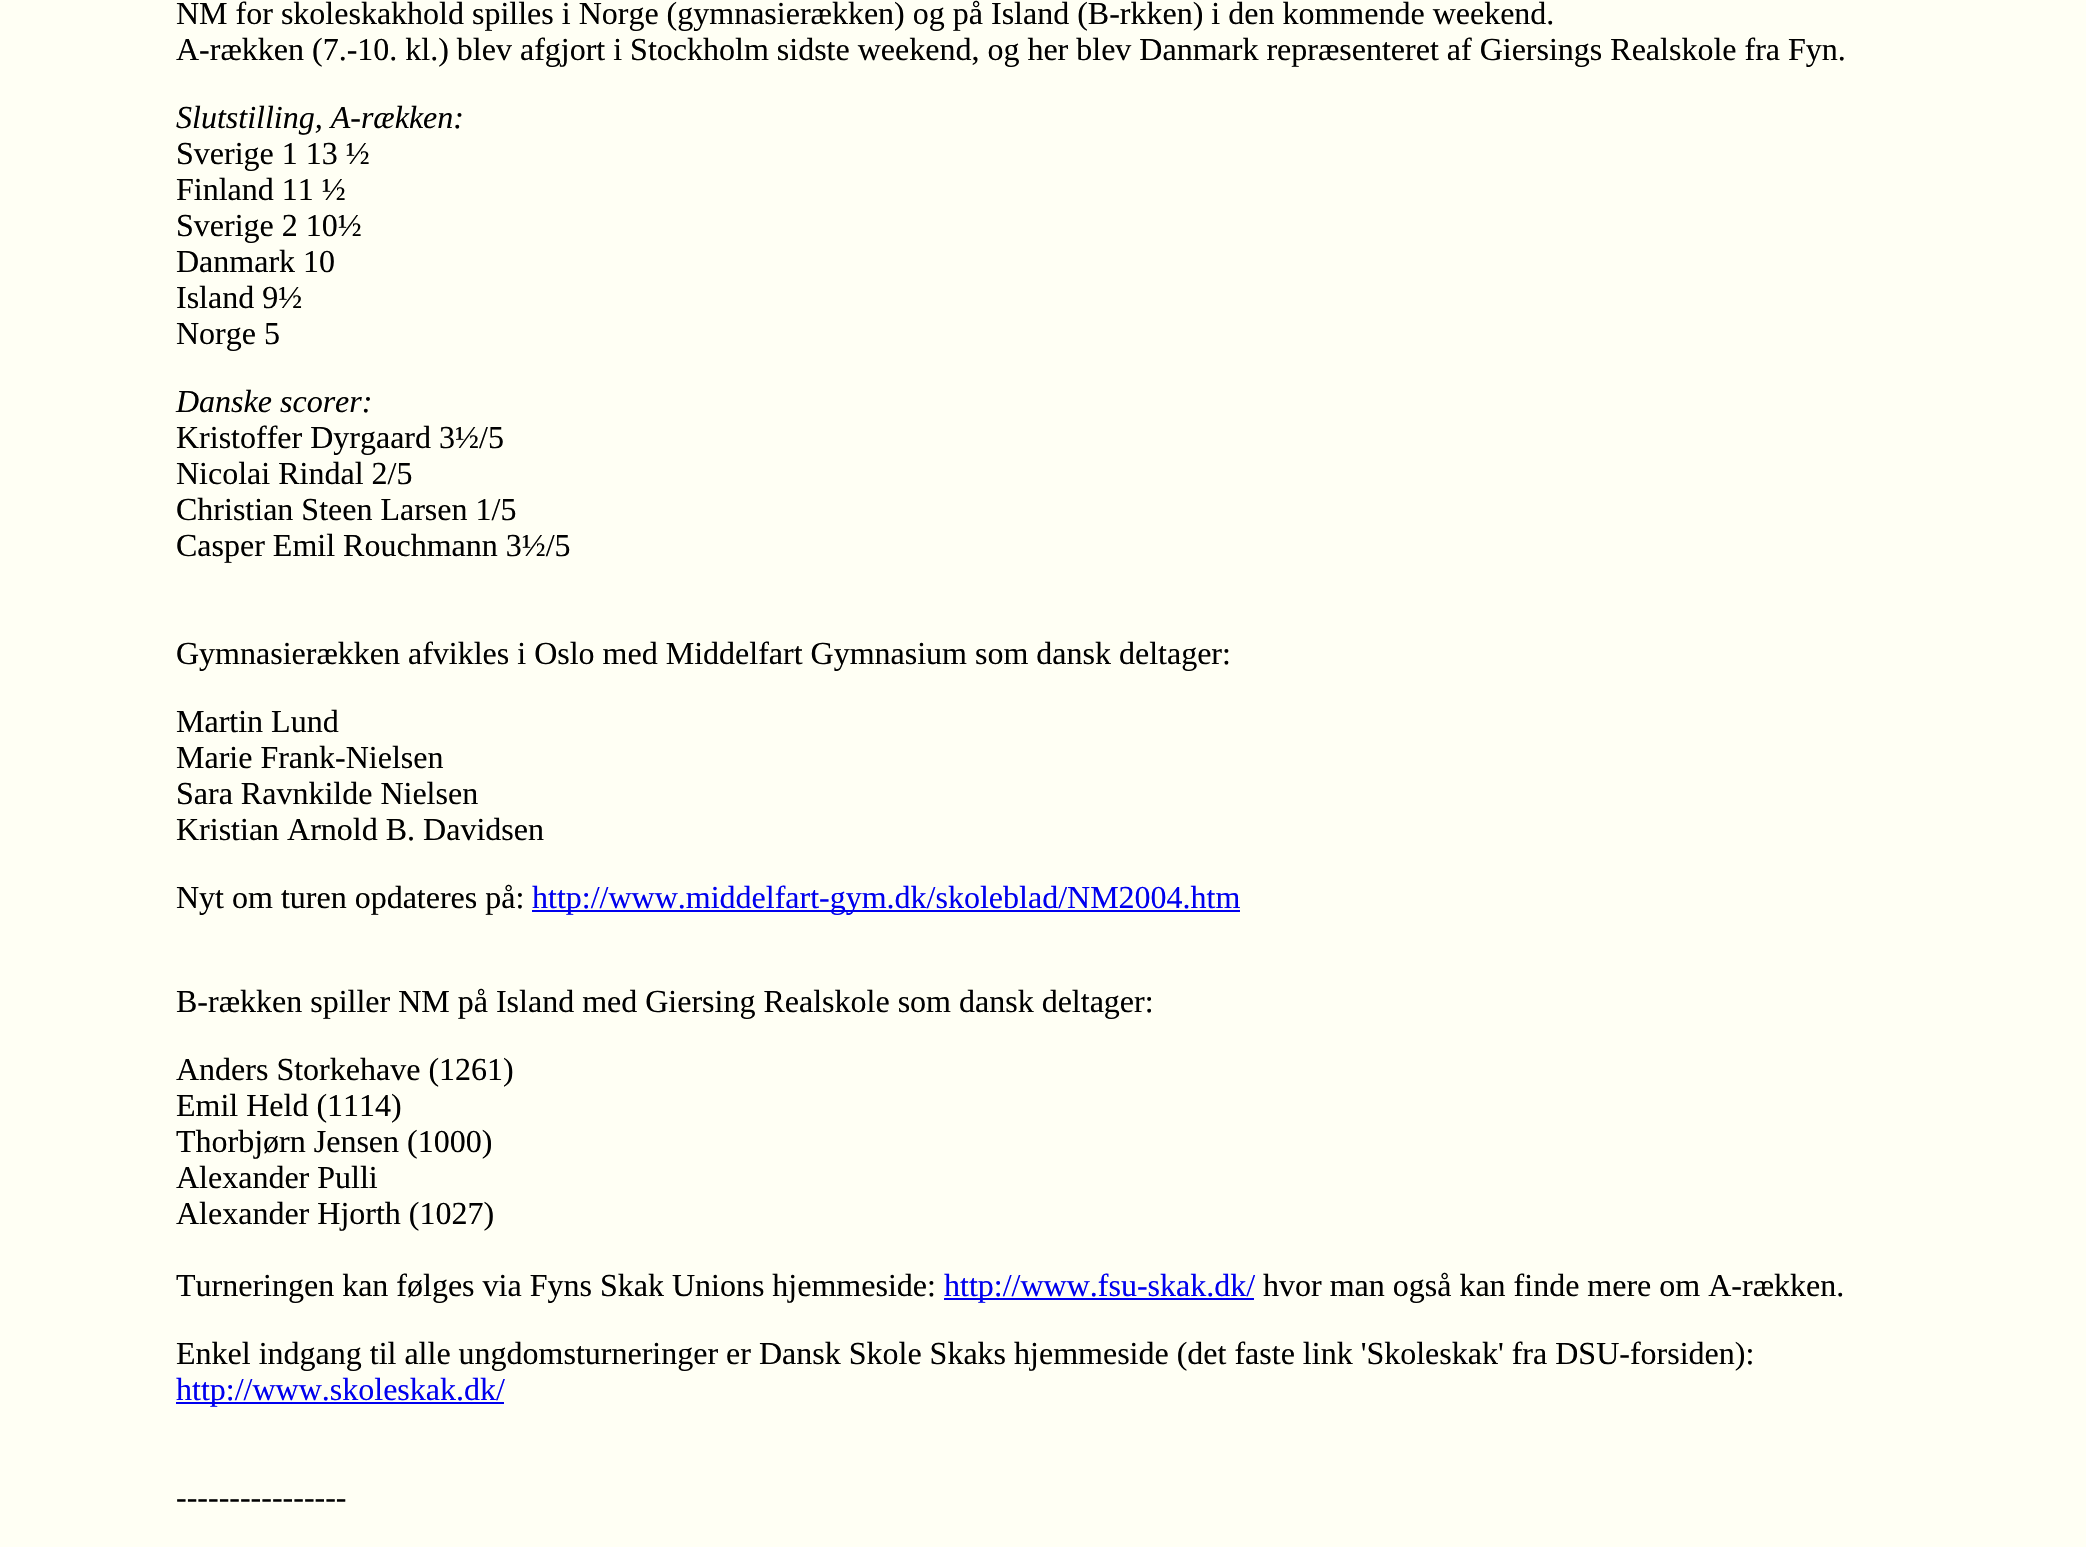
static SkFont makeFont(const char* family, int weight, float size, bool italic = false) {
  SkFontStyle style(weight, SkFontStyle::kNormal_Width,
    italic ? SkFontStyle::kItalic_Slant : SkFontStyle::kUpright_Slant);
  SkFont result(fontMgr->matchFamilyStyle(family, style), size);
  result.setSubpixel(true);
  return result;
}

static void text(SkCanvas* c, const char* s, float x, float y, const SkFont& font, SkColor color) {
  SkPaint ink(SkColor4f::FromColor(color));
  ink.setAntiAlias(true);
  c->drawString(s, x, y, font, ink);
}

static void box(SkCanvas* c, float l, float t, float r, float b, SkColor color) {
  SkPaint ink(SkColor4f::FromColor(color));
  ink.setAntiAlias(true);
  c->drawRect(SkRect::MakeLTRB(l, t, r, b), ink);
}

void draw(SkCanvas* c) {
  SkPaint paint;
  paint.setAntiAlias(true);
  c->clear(0xfffffff4);
  SkFont face1 = makeFont("Liberation Serif", 400, 32);
  text(c, "NM for skoleskakhold spilles i Norge (gymnasierækken) og på Island (B-rkken) i den kommende weekend.", 176, 24, face1, 0xff000000);
  text(c, "A-rækken (7.-10. kl.) blev afgjort i Stockholm sidste weekend, og her blev Danmark repræsenteret af Giersings Realskole fra Fyn.", 176, 60, face1, 0xff000000);
  SkFont face2 = makeFont("Liberation Serif", 400, 32, true);
  text(c, "Slutstilling, A-rækken:", 176, 128, face2, 0xff000000);
  text(c, "Sverige 1 13 ½", 176, 164, face1, 0xff000000);
  text(c, "Finland 11 ½", 176, 200, face1, 0xff000000);
  text(c, "Sverige 2 10½", 176, 236, face1, 0xff000000);
  text(c, "Danmark 10", 176, 272, face1, 0xff000000);
  text(c, "Island 9½", 176, 308, face1, 0xff000000);
  text(c, "Norge 5", 176, 344, face1, 0xff000000);
  text(c, "Danske scorer:", 176, 412, face2, 0xff000000);
  text(c, "Kristoffer Dyrgaard 3½/5", 176, 448, face1, 0xff000000);
  text(c, "Nicolai Rindal 2/5", 176, 484, face1, 0xff000000);
  text(c, "Christian Steen Larsen 1/5", 176, 520, face1, 0xff000000);
  text(c, "Casper Emil Rouchmann 3½/5", 176, 556, face1, 0xff000000);
  text(c, "Gymnasierækken afvikles i Oslo med Middelfart Gymnasium som dansk deltager:", 176, 664, face1, 0xff000000);
  text(c, "Martin Lund", 176, 732, face1, 0xff000000);
  text(c, "Marie Frank-Nielsen", 176, 768, face1, 0xff000000);
  text(c, "Sara Ravnkilde Nielsen", 176, 804, face1, 0xff000000);
  text(c, "Kristian Arnold B. Davidsen", 176, 840, face1, 0xff000000);
  text(c, "Nyt om turen opdateres på:", 176, 908, face1, 0xff000000);
  box(c, 532, 910, 1240, 912, 0xff0000ee);
  text(c, "http://www.middelfart-gym.dk/skoleblad/NM2004.htm", 532, 908, face1, 0xff0000ee);
  text(c, "B-rækken spiller NM på Island med Giersing Realskole som dansk deltager:", 176, 1012, face1, 0xff000000);
  text(c, "Anders Storkehave (1261)", 176, 1080, face1, 0xff000000);
  text(c, "Emil Held (1114)", 176, 1116, face1, 0xff000000);
  text(c, "Thorbjørn Jensen (1000)", 176, 1152, face1, 0xff000000);
  text(c, "Alexander Pulli", 176, 1188, face1, 0xff000000);
  text(c, "Alexander Hjorth (1027)", 176, 1224, face1, 0xff000000);
  text(c, "Turneringen kan følges via Fyns Skak Unions hjemmeside:", 176, 1296, face1, 0xff000000);
  box(c, 944, 1298, 1254, 1300, 0xff0000ee);
  text(c, "http://www.fsu-skak.dk/", 944, 1296, face1, 0xff0000ee);
  text(c, "hvor man også kan finde mere om A-rækken.", 1263, 1296, face1, 0xff000000);
  text(c, "Enkel indgang til alle ungdomsturneringer er Dansk Skole Skaks hjemmeside (det faste link 'Skoleskak' fra DSU-forsiden):", 176, 1364, face1, 0xff000000);
  box(c, 176, 1402, 504, 1404, 0xff0000ee);
  text(c, "http://www.skoleskak.dk/", 176, 1400, face1, 0xff0000ee);
  text(c, "----------------", 176, 1508, face1, 0xff000000);
}
